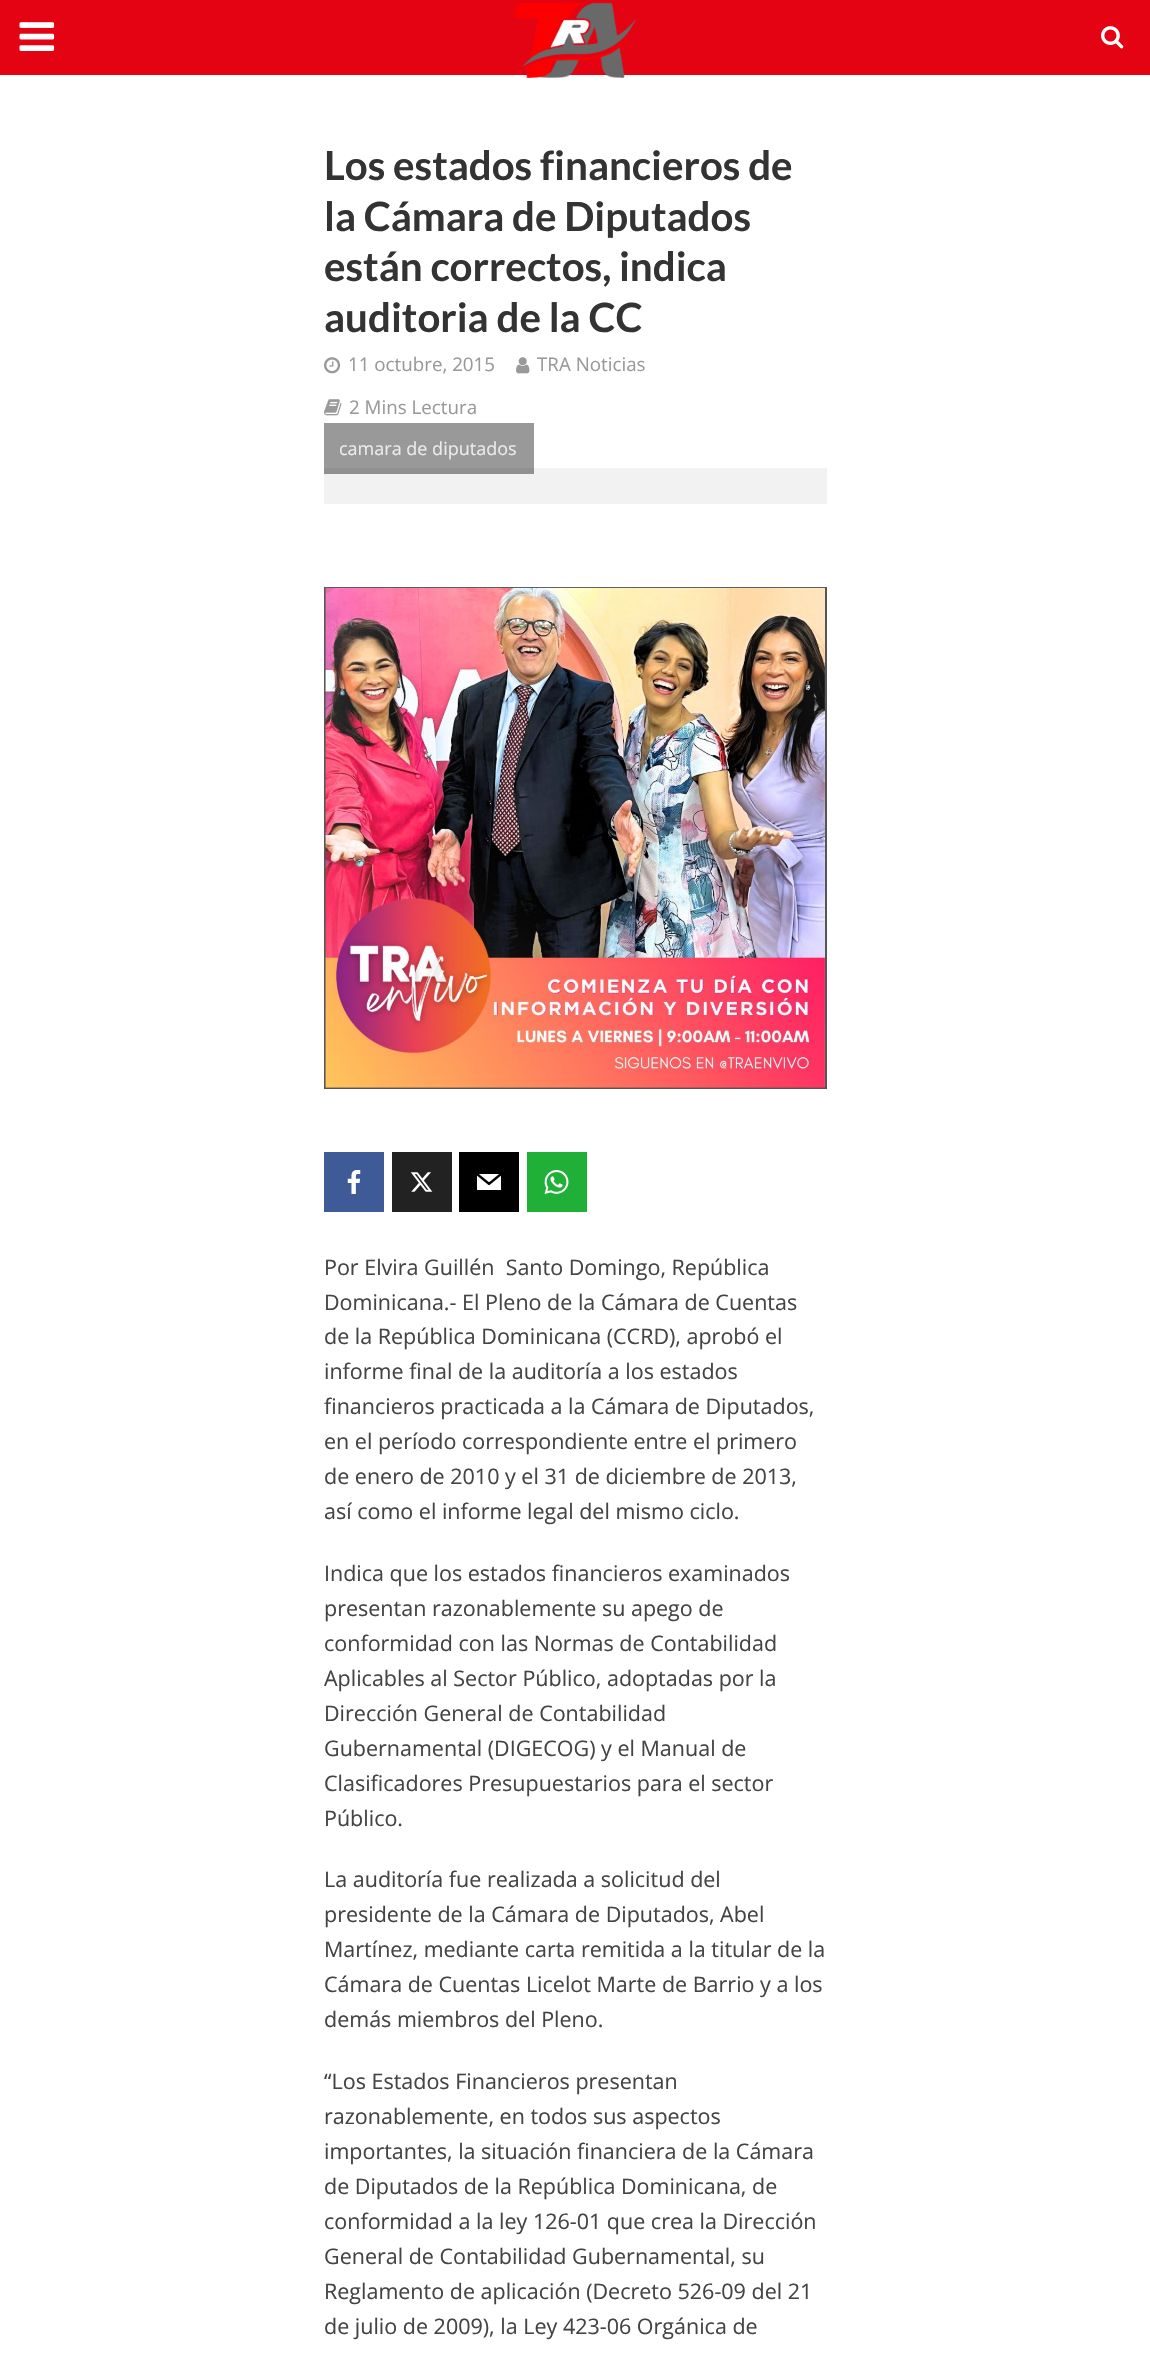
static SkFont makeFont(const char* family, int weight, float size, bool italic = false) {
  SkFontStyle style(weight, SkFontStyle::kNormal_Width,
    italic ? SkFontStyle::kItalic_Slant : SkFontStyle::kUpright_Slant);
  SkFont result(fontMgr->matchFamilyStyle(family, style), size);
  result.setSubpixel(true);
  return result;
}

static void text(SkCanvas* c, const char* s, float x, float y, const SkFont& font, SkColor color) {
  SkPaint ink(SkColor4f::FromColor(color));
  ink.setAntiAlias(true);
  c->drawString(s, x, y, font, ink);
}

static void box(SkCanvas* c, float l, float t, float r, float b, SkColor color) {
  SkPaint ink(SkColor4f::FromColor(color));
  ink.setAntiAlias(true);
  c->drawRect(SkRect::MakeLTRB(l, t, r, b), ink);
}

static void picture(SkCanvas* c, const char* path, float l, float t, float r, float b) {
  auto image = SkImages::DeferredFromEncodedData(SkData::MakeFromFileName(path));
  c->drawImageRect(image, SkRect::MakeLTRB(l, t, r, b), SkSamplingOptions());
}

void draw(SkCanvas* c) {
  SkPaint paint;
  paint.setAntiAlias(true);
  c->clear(0xffffffff);
  box(c, 324, 423, 534, 468, 0xff999999);
  box(c, 0, 0, 1150, 75, 0xffe30313);
  picture(c, "img_01.png", 19, 22, 55, 51);
  picture(c, "img_02.png", 514, 2, 636, 78);
  picture(c, "img_03.png", 1101, 26, 1124, 49);
  SkFont face1 = makeFont("Lato", 700, 40.25f);
  text(c, "Los estados financieros de", 324, 180, face1, 0xff333333);
  text(c, "la Cámara de Diputados", 324, 231, face1, 0xff333333);
  text(c, "están correctos, indica", 324, 281, face1, 0xff333333);
  text(c, "auditoria de la CC", 324, 332, face1, 0xff333333);
  picture(c, "img_04.png", 324, 357, 341, 374);
  SkFont face2 = makeFont("Open Sans", 400, 18.75f);
  text(c, "11 octubre, 2015", 348, 371, face2, 0xff999999);
  picture(c, "img_05.png", 516, 357, 530, 374);
  text(c, "TRA Noticias", 537, 371, face2, 0xff999999);
  picture(c, "img_06.png", 324, 399, 342, 416);
  text(c, "2 Mins Lectura", 349, 414, face2, 0xff999999);
  box(c, 324, 468, 827, 504, 0xfff2f2f2);
  box(c, 324, 468, 534, 474, 0xff919191);
  SkFont face3 = makeFont("Open Sans", 400, 18);
  text(c, "camara de diputados", 339, 455, face3, 0xffebebeb);
  paint.setStyle(SkPaint::kStroke_Style);
  paint.setStrokeWidth(2);
  paint.setColor(0xff555555);
  c->drawRect(SkRect::MakeLTRB(325, 588, 826, 1088), paint);
  picture(c, "img_07.png", 325, 587, 825, 1088);
  box(c, 324, 1152, 384, 1212, 0xff3e5b98);
  picture(c, "img_08.png", 347, 1170, 361, 1194);
  box(c, 392, 1152, 452, 1212, 0xff222222);
  picture(c, "img_09.png", 410, 1172, 433, 1192);
  box(c, 459, 1152, 519, 1212, 0xff000000);
  picture(c, "img_10.png", 477, 1174, 501, 1190);
  box(c, 527, 1152, 587, 1212, 0xff20b038);
  picture(c, "img_11.png", 544, 1170, 569, 1194);
  SkFont face4 = makeFont("Open Sans", 400, 21.5f);
  text(c, "Por Elvira Guillén  Santo Domingo, República", 324, 1275, face4, 0xff444444);
  text(c, "Dominicana.- El Pleno de la Cámara de Cuentas", 324, 1310, face4, 0xff444444);
  text(c, "de la República Dominicana (CCRD), aprobó el", 324, 1344, face4, 0xff444444);
  text(c, "informe final de la auditoría a los estados", 324, 1379, face4, 0xff444444);
  text(c, "financieros practicada a la Cámara de Diputados,", 324, 1414, face4, 0xff444444);
  text(c, "en el período correspondiente entre el primero", 324, 1449, face4, 0xff444444);
  text(c, "de enero de 2010 y el 31 de diciembre de 2013,", 324, 1484, face4, 0xff444444);
  text(c, "así como el informe legal del mismo ciclo.", 324, 1519, face4, 0xff444444);
  text(c, "Indica que los estados financieros examinados", 324, 1581, face4, 0xff444444);
  text(c, "presentan razonablemente su apego de", 324, 1616, face4, 0xff444444);
  text(c, "conformidad con las Normas de Contabilidad", 324, 1651, face4, 0xff444444);
  text(c, "Aplicables al Sector Público, adoptadas por la", 324, 1686, face4, 0xff444444);
  text(c, "Dirección General de Contabilidad", 324, 1721, face4, 0xff444444);
  text(c, "Gubernamental (DIGECOG) y el Manual de", 324, 1756, face4, 0xff444444);
  text(c, "Clasificadores Presupuestarios para el sector", 324, 1791, face4, 0xff444444);
  text(c, "Público.", 324, 1826, face4, 0xff444444);
  text(c, "La auditoría fue realizada a solicitud del", 324, 1887, face4, 0xff444444);
  text(c, "presidente de la Cámara de Diputados, Abel", 324, 1922, face4, 0xff444444);
  text(c, "Martínez, mediante carta remitida a la titular de la", 324, 1957, face4, 0xff444444);
  text(c, "Cámara de Cuentas Licelot Marte de Barrio y a los", 324, 1992, face4, 0xff444444);
  text(c, "demás miembros del Pleno.", 324, 2027, face4, 0xff444444);
  text(c, "“Los Estados Financieros presentan", 324, 2089, face4, 0xff444444);
  text(c, "razonablemente, en todos sus aspectos", 324, 2124, face4, 0xff444444);
  text(c, "importantes, la situación financiera de la Cámara", 324, 2159, face4, 0xff444444);
  text(c, "de Diputados de la República Dominicana, de", 324, 2194, face4, 0xff444444);
  text(c, "conformidad a la ley 126-01 que crea la Dirección", 324, 2229, face4, 0xff444444);
  text(c, "General de Contabilidad Gubernamental, su", 324, 2264, face4, 0xff444444);
  text(c, "Reglamento de aplicación (Decreto 526-09 del 21", 324, 2299, face4, 0xff444444);
  text(c, "de julio de 2009), la Ley 423-06 Orgánica de", 324, 2334, face4, 0xff444444);
}
